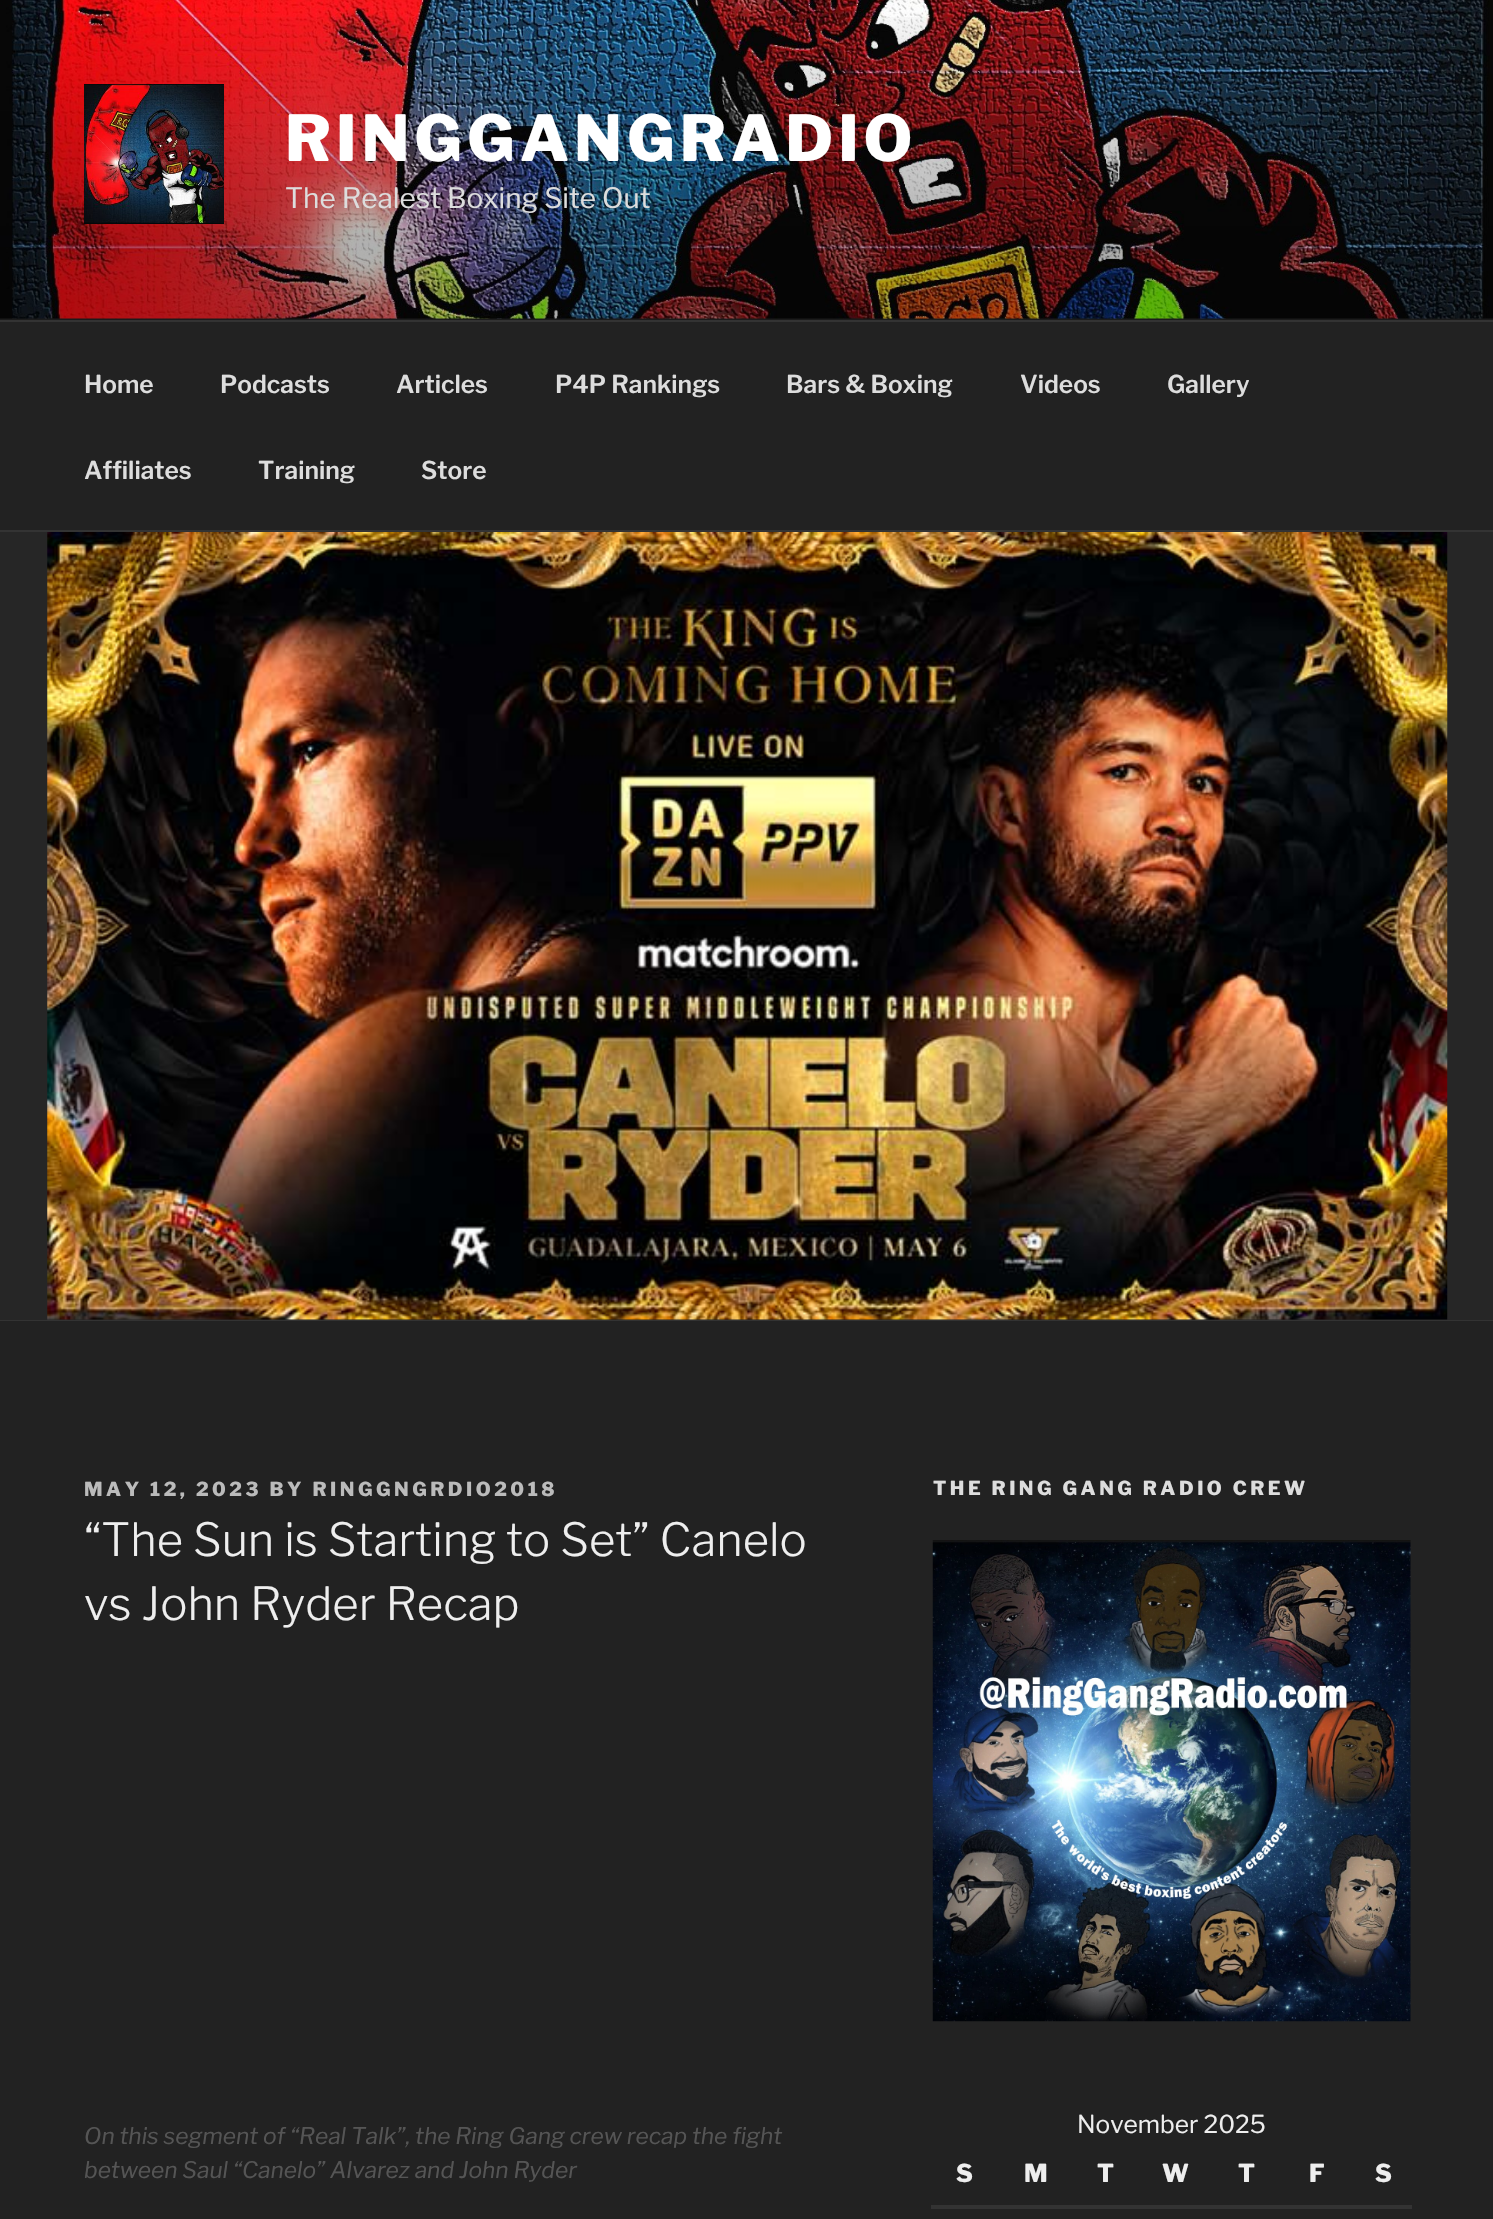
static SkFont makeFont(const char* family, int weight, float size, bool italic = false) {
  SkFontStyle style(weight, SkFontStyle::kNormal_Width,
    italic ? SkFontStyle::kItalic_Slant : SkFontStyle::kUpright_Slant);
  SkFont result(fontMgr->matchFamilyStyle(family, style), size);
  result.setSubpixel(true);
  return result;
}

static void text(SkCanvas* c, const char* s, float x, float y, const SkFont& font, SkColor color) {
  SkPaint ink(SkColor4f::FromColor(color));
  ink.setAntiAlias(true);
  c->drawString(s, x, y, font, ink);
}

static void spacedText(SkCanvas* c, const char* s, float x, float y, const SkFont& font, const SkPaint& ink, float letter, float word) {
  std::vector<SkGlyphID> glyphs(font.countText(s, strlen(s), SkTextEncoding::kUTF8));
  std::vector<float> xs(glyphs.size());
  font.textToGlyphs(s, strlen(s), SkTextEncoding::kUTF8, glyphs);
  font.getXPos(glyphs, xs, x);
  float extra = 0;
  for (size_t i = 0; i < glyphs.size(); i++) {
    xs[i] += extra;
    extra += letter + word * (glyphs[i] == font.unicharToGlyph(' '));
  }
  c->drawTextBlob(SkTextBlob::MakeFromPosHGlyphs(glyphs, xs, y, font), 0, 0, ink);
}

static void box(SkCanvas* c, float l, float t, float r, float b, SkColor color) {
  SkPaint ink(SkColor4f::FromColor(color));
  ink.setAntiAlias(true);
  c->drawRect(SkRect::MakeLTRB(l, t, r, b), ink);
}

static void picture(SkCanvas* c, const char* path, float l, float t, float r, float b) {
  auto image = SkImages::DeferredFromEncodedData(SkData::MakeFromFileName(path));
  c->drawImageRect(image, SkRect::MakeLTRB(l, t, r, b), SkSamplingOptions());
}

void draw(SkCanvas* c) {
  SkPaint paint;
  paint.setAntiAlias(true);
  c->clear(0xff262626);
  picture(c, "img_01.png", 0, 0, 1493, 319);
  {
    const SkColor colors[] = {0x00000000, 0x4d000000, 0x4d000000};
    const float stops[] = {0, 0.75f, 1};
    const SkPoint ends[] = {{747, 0}, {747, 320}};
    paint.setShader(SkGradientShader::MakeLinear(ends, colors, stops, 3, SkTileMode::kClamp));
    paint.setAlpha(255);
  }
  c->drawRect(SkRect::MakeLTRB(0, 17, 1493, 320), paint);
  picture(c, "img_02.png", 84, 84, 224, 224);
  SkFont face1 = makeFont("Libre Franklin", 100, 63);
  paint.setShader(nullptr);
  paint.setColor(0xffffffff);
  spacedText(c, "RINGGANGRADIO", 285, 161, face1, paint, 5, 0);
  SkFont face2 = makeFont("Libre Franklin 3", 100, 28);
  text(c, "The Realest Boxing Site Out", 285, 208, face2, 0xffdddddd);
  box(c, 0, 322, 1493, 530, 0xff222222);
  box(c, 0, 320, 1493, 322, 0xff333333);
  box(c, 0, 530, 1493, 532, 0xff333333);
  SkFont face3 = makeFont("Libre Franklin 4", 100, 24.5f);
  text(c, "Home", 84, 393, face3, 0xffdddddd);
  text(c, "Podcasts", 220, 393, face3, 0xffdddddd);
  text(c, "Articles", 396, 393, face3, 0xffdddddd);
  text(c, "P4P Rankings", 555, 393, face3, 0xffdddddd);
  text(c, "Bars & Boxing", 786, 393, face3, 0xffdddddd);
  text(c, "Videos", 1020, 393, face3, 0xffdddddd);
  text(c, "Gallery", 1167, 393, face3, 0xffdddddd);
  text(c, "Affiliates", 84, 479, face3, 0xffdddddd);
  text(c, "Training", 258, 479, face3, 0xffdddddd);
  text(c, "Store", 421, 479, face3, 0xffdddddd);
  box(c, 0, 1320, 1493, 1321, 0xff333333);
  picture(c, "img_03.png", 47, 532, 1448, 1320);
  box(c, 0, 1321, 1493, 2219, 0xff222222);
  SkFont face4 = makeFont("Libre Franklin", 100, 19.25f);
  paint.setColor(0xffbbbbbb);
  spacedText(c, "MAY 12, 2023 BY RINGGNGRDIO2018", 84, 1496, face4, paint, 3.5f, 0);
  SkFont face5 = makeFont("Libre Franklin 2", 100, 45.5f);
  text(c, "“The Sun is Starting to Set” Canelo", 84, 1556, face5, 0xffeeeeee);
  text(c, "vs John Ryder Recap", 84, 1620, face5, 0xffeeeeee);
  SkFont face6 = makeFont("Libre Franklin", 100, 22.75f, true);
  text(c, "On this segment of “Real Talk”, the Ring Gang crew recap the fight", 84, 2144, face6, 0xff555555);
  text(c, "between Saul “Canelo” Alvarez and John Ryder", 84, 2178, face6, 0xff555555);
  paint.setColor(0xffdddddd);
  spacedText(c, "THE RING GANG RADIO CREW", 933, 1495, face4, paint, 3.5f, 0);
  picture(c, "img_04.png", 932, 1540, 1411, 2022);
  SkFont face7 = makeFont("Libre Franklin 3", 100, 24.5f);
  text(c, "November 2025", 1077, 2133, face7, 0xffeeeeee);
  SkFont face8 = makeFont("Libre Franklin", 100, 24.5f);
  text(c, "S", 956, 2182, face8, 0xffeeeeee);
  text(c, "M", 1024, 2182, face8, 0xffeeeeee);
  text(c, "T", 1097, 2182, face8, 0xffeeeeee);
  text(c, "W", 1162, 2182, face8, 0xffeeeeee);
  text(c, "T", 1238, 2182, face8, 0xffeeeeee);
  text(c, "F", 1309, 2182, face8, 0xffeeeeee);
  box(c, 931, 2205, 1412, 2209, 0xff333333);
  text(c, "S", 1375, 2182, face8, 0xffeeeeee);
}
